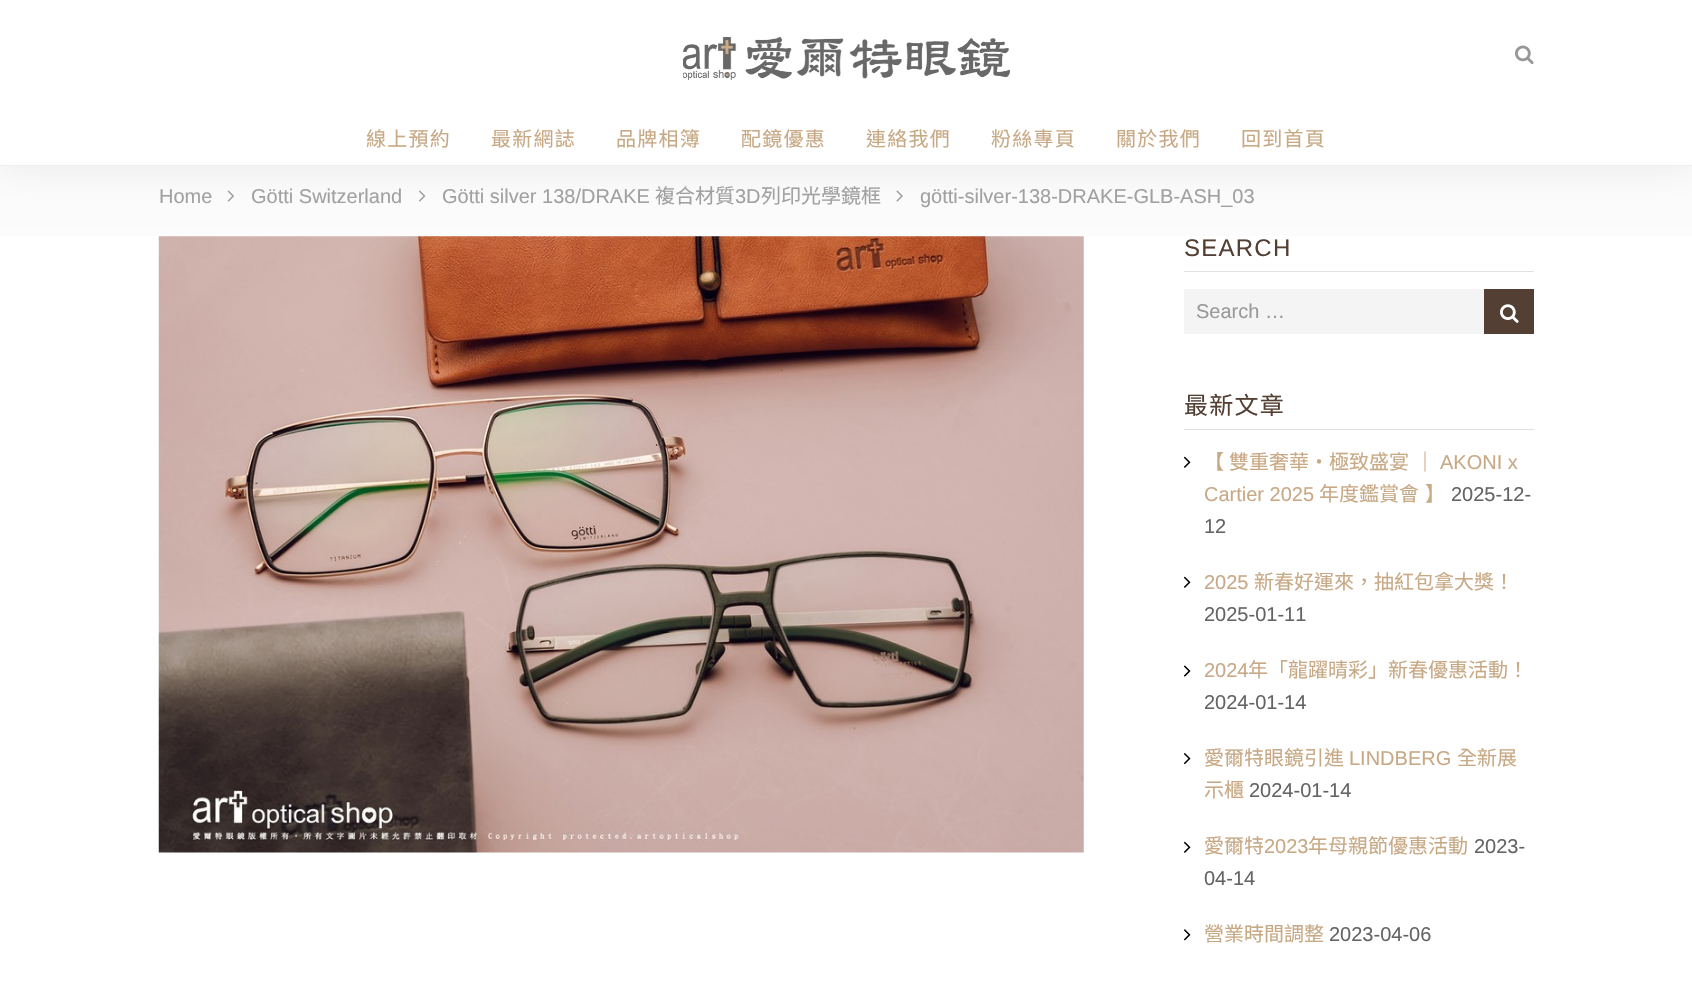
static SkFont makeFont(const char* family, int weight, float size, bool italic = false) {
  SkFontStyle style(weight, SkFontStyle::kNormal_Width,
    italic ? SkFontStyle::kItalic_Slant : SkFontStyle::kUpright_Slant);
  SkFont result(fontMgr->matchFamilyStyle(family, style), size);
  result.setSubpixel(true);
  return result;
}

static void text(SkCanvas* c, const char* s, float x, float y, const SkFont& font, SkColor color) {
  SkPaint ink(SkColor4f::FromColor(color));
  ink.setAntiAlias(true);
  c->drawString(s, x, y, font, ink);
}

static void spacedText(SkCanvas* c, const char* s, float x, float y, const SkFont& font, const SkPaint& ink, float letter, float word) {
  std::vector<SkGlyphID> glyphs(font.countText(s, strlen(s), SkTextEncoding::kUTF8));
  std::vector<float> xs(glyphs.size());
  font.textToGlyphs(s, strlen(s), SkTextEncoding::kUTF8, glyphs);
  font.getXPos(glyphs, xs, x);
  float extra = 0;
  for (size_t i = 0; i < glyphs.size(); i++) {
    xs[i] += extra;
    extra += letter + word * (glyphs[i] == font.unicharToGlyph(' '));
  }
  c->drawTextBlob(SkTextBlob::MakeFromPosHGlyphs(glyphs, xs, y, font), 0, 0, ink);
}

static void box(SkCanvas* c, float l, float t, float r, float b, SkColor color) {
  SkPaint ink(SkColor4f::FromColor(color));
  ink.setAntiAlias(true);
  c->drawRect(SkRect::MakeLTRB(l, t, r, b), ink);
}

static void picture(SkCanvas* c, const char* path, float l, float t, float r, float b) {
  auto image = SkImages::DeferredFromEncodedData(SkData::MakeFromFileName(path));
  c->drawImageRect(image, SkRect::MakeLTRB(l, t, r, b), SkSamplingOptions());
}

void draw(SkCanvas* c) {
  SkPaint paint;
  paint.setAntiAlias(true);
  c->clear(0xffffffff);
  box(c, 0, 166, 1692, 236, 0xfffcfcfc);
  picture(c, "img_03.png", 227, 190, 234, 202);
  picture(c, "img_04.png", 419, 190, 426, 202);
  picture(c, "img_05.png", 896, 190, 903, 202);
  paint.setColor(0x14000000);
  paint.setMaskFilter(SkMaskFilter::MakeBlur(kNormal_SkBlurStyle, 20));
  c->drawRect(SkRect::MakeLTRB(0, 0, 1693, 166), paint);
  paint.setMaskFilter(nullptr);
  box(c, 0, 0, 1692, 165, 0xffffffff);
  box(c, 0, 165, 1692, 166, 0xffeeeeee);
  picture(c, "img_01.png", 683, 37, 1010, 80);
  picture(c, "img_02.png", 1515, 45, 1534, 65);
  SkFont face1 = makeFont("Noto Sans CJK TC", 400, 20);
  paint.setColor(0xffc8a985);
  spacedText(c, "線上預約", 366, 146, face1, paint, 1.25f, 0);
  spacedText(c, "最新網誌", 491, 146, face1, paint, 1.25f, 0);
  spacedText(c, "品牌相簿", 616, 146, face1, paint, 1.25f, 0);
  spacedText(c, "配鏡優惠", 741, 146, face1, paint, 1.25f, 0);
  spacedText(c, "連絡我們", 866, 146, face1, paint, 1.25f, 0);
  spacedText(c, "粉絲專頁", 991, 146, face1, paint, 1.25f, 0);
  spacedText(c, "關於我們", 1116, 146, face1, paint, 1.25f, 0);
  spacedText(c, "回到首頁", 1241, 146, face1, paint, 1.25f, 0);
  SkFont face2 = makeFont("Liberation Sans", 400, 20);
  text(c, "Home", 159, 203, face2, 0xffa1a1a1);
  text(c, "Götti Switzerland", 251, 203, face2, 0xffa1a1a1);
  text(c, "Götti silver 138/DRAKE", 442, 203, face2, 0xffa1a1a1);
  text(c, "複合材質", 655, 203, face1, 0xffa1a1a1);
  text(c, "3D", 735, 203, face2, 0xffa1a1a1);
  text(c, "列印光學鏡框", 761, 203, face1, 0xffa1a1a1);
  text(c, "götti-silver-138-DRAKE-GLB-ASH_03", 920, 203, face2, 0xffa1a1a1);
  picture(c, "img_06.png", 158, 236, 1084, 853);
  SkFont face3 = makeFont("Liberation Sans", 400, 24);
  paint.setColor(0xff533f34);
  spacedText(c, "SEARCH", 1184, 256, face3, paint, 1.25f, 0);
  box(c, 1184, 271, 1534, 272, 0xffe1e1e1);
  box(c, 1184, 289, 1484, 334, 0xfff4f4f4);
  text(c, "Search …", 1196, 318, face2, 0xff999999);
  box(c, 1484, 289, 1534, 334, 0xff533f34);
  picture(c, "img_07.png", 1500, 304, 1519, 323);
  SkFont face4 = makeFont("Noto Sans CJK TC", 400, 24);
  spacedText(c, "最新文章", 1184, 414, face4, paint, 1.25f, 0);
  box(c, 1184, 429, 1534, 430, 0xffe1e1e1);
  picture(c, "img_08.png", 1183, 456, 1191, 468);
  text(c, "【", 1204, 469, face1, 0xffc8a985);
  text(c, "雙重奢華・極致盛宴", 1229, 469, face1, 0xffc8a985);
  text(c, "｜", 1415, 469, face1, 0xffc8a985);
  text(c, "AKONI x", 1440, 469, face2, 0xffc8a985);
  text(c, "Cartier 2025", 1204, 501, face2, 0xffc8a985);
  text(c, "年度鑑賞會", 1319, 501, face1, 0xffc8a985);
  text(c, "】", 1425, 501, face1, 0xffc8a985);
  text(c, "2025-12-", 1451, 501, face2, 0xff646464);
  text(c, "12", 1204, 533, face2, 0xff646464);
  picture(c, "img_08.png", 1183, 576, 1191, 588);
  text(c, "2025", 1204, 589, face2, 0xffc8a985);
  text(c, "新春好運來，抽紅包拿大獎！", 1254, 589, face1, 0xffc8a985);
  text(c, "2025-01-11", 1204, 621, face2, 0xff646464);
  picture(c, "img_09.png", 1183, 665, 1191, 677);
  text(c, "2024", 1204, 677, face2, 0xffc8a985);
  text(c, "年「龍躍晴彩」新春優惠活動！", 1248, 677, face1, 0xffc8a985);
  text(c, "2024-01-14", 1204, 709, face2, 0xff646464);
  picture(c, "img_10.png", 1183, 753, 1191, 765);
  text(c, "愛爾特眼鏡引進", 1204, 765, face1, 0xffc8a985);
  text(c, "LINDBERG", 1349, 765, face2, 0xffc8a985);
  text(c, "全新展", 1457, 765, face1, 0xffc8a985);
  text(c, "示櫃", 1204, 797, face1, 0xffc8a985);
  text(c, "2024-01-14", 1249, 797, face2, 0xff646464);
  picture(c, "img_08.png", 1183, 841, 1191, 853);
  text(c, "愛爾特", 1204, 853, face1, 0xffc8a985);
  text(c, "2023", 1264, 853, face2, 0xffc8a985);
  text(c, "年母親節優惠活動", 1308, 853, face1, 0xffc8a985);
  text(c, "2023-", 1474, 853, face2, 0xff646464);
  text(c, "04-14", 1204, 885, face2, 0xff646464);
  picture(c, "img_11.png", 1183, 929, 1191, 941);
  text(c, "營業時間調整", 1204, 941, face1, 0xffc8a985);
  text(c, "2023-04-06", 1329, 941, face2, 0xff646464);
}
